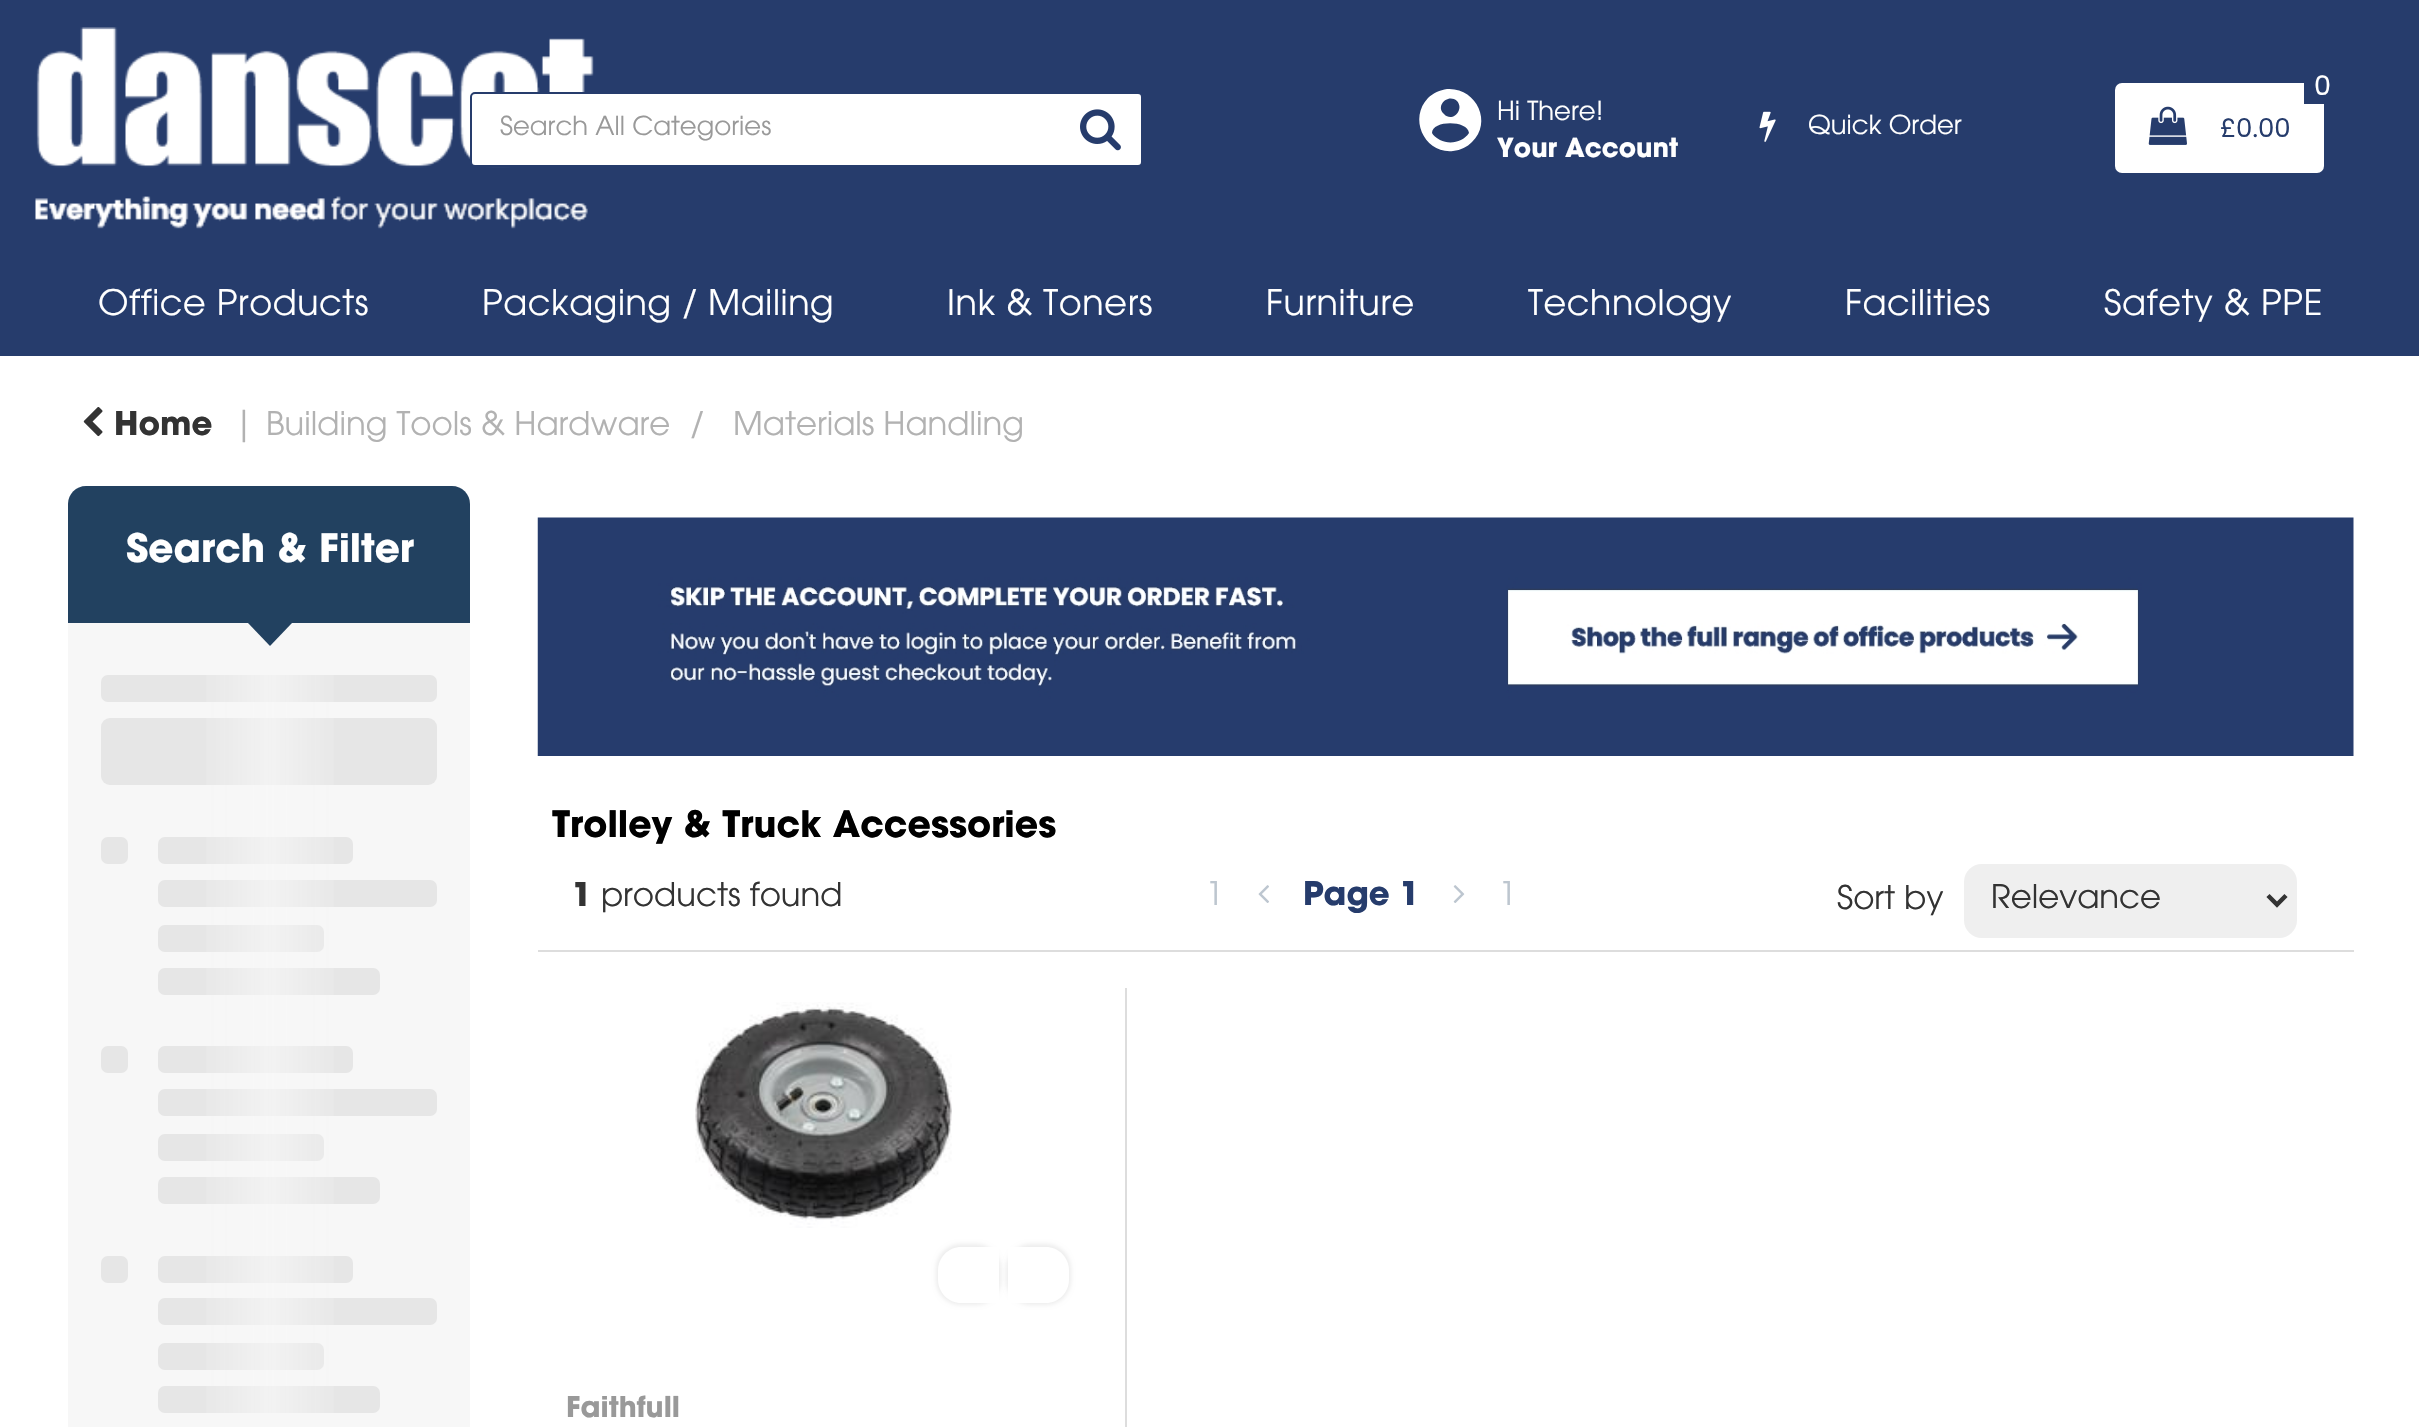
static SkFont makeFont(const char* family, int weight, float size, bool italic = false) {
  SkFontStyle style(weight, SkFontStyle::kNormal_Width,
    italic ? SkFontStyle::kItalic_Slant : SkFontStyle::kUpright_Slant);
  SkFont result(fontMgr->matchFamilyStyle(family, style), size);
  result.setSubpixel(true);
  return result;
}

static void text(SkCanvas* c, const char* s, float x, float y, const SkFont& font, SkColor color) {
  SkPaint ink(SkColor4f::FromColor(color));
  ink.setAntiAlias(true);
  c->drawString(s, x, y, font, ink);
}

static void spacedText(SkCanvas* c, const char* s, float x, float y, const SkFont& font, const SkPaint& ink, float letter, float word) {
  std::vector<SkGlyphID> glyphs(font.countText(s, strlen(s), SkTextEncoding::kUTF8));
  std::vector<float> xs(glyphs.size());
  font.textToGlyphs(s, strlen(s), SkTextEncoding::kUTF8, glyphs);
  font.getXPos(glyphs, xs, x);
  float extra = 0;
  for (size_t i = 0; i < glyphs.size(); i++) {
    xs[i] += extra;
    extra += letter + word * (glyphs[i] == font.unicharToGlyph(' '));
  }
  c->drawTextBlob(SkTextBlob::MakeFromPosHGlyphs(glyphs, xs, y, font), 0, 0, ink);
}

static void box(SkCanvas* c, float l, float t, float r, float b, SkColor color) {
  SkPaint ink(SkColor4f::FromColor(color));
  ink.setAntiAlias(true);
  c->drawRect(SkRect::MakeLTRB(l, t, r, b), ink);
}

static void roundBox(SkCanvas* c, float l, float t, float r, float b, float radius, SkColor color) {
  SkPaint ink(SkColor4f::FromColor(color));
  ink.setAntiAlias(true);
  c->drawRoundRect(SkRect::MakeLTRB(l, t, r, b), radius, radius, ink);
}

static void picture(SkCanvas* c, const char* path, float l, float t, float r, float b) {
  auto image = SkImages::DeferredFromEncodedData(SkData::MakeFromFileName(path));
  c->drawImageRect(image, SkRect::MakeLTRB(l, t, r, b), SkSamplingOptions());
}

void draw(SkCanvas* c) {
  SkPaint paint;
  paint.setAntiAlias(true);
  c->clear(0xffffffff);
  box(c, 0, 0, 2419, 356, 0xff263c6c);
  picture(c, "img_01.png", 35, 27, 594, 229);
  paint.setColor(0xffffffff);
  c->drawRoundRect(SkRect::MakeLTRB(471, 93, 1142, 166), 4, 4, paint);
  paint.setStyle(SkPaint::kStroke_Style);
  paint.setStrokeWidth(2);
  paint.setColor(0xff263c6c);
  c->drawRoundRect(SkRect::MakeLTRB(471, 93, 1142, 166), 4, 4, paint);
  SkFont face1 = makeFont("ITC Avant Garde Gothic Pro", 300, 26);
  text(c, "Search All Categories", 500, 135, face1, 0xff999999);
  picture(c, "img_02.png", 1080, 109, 1121, 151);
  paint.setStyle(SkPaint::kFill_Style);
  paint.setColor(0xffffffff);
  c->drawPath(SkPathBuilder().moveTo(1440, 140).cubicTo(1450, 145, 1463, 142, 1469, 133).cubicTo(1468, 120, 1432, 120, 1432, 133).cubicTo(1433, 135, 1436, 138, 1440, 140).close().moveTo(1457, 101).cubicTo(1448, 93, 1435, 106, 1444, 114).cubicTo(1452, 123, 1465, 110, 1457, 101).close().moveTo(1428, 98).cubicTo(1433, 93, 1440, 90, 1447, 89).cubicTo(1476, 87, 1493, 122, 1472, 142).cubicTo(1467, 147, 1461, 150, 1453, 151).cubicTo(1425, 154, 1408, 119, 1428, 98).close().detach(), paint);
  text(c, "Hi There!", 1497, 120, face1, 0xffffffff);
  SkFont face2 = makeFont("ITC Avant Garde Gothic Pro", 700, 26);
  text(c, "Your Account", 1497, 157, face2, 0xffffffff);
  picture(c, "img_03.png", 1759, 111, 1776, 142);
  text(c, "Quick Order", 1808, 134, face1, 0xffffffff);
  roundBox(c, 2115, 83, 2324, 173, 7, 0xffffffff);
  box(c, 2304, 83, 2324, 104, 0xff263c6c);
  SkFont face3 = makeFont("Poppins", 400, 27);
  text(c, "0", 2314, 95, face3, 0xffffffff);
  picture(c, "img_04.png", 2148, 106, 2187, 145);
  SkFont face4 = makeFont("Poppins", 400, 26);
  text(c, "£0.00", 2220, 137, face4, 0xff263c6c);
  SkFont face5 = makeFont("ITC Avant Garde Gothic Pro", 300, 35);
  spacedText(c, "Office Products", 98, 315, face5, paint, 0.6f, 0);
  spacedText(c, "Packaging / Mailing", 482, 315, face5, paint, 0.6f, 0);
  spacedText(c, "Ink & Toners", 947, 315, face5, paint, 0.6f, 0);
  spacedText(c, "Furniture", 1266, 315, face5, paint, 0.6f, 0);
  spacedText(c, "Technology", 1528, 315, face5, paint, 0.6f, 0);
  spacedText(c, "Facilities", 1845, 315, face5, paint, 0.6f, 0);
  spacedText(c, "Safety & PPE", 2104, 315, face5, paint, 0.6f, 0);
  picture(c, "img_05.png", 83, 407, 103, 437);
  SkFont face6 = makeFont("ITC Avant Garde Gothic Pro", 700, 32.4f);
  text(c, "Home", 114, 435, face6, 0xff333333);
  SkFont face7 = makeFont("ITC Avant Garde Gothic Pro", 300, 32.4f);
  text(c, "|", 233, 435, face7, 0xffb2b2b2);
  text(c, "Building Tools & Hardware", 266, 435, face7, 0xffb2b2b2);
  text(c, "/", 690, 435, face7, 0xffb2b2b2);
  text(c, "Materials Handling", 733, 435, face7, 0xffb2b2b2);
  box(c, 68, 623, 470, 1427, 0xfff7f7f7);
  paint.setColor(0xff224160);
  c->drawPath(SkPathBuilder().moveTo(86, 486).lineTo(452, 486).cubicTo(462, 486, 470, 494, 470, 504).lineTo(470, 623).lineTo(68, 623).lineTo(68, 504).cubicTo(68, 494, 76, 486, 86, 486).close().detach(), paint);
  SkFont face8 = makeFont("ITC Avant Garde Gothic Pro", 700, 39);
  text(c, "Search & Filter", 126, 562, face8, 0xffffffff);
  c->drawPath(SkPathBuilder().moveTo(248, 623).lineTo(292, 623).lineTo(270, 646).close().detach(), paint);
  roundBox(c, 101, 675, 437, 702, 7, 0xffe6e6e6);
  roundBox(c, 101, 718, 437, 785, 9, 0xffe6e6e6);
  roundBox(c, 158, 837, 353, 864, 7, 0xffe6e6e6);
  roundBox(c, 101, 837, 128, 864, 7, 0xffe6e6e6);
  roundBox(c, 158, 880, 437, 907, 7, 0xffe6e6e6);
  roundBox(c, 158, 925, 324, 952, 7, 0xffe6e6e6);
  roundBox(c, 158, 968, 380, 995, 7, 0xffe6e6e6);
  roundBox(c, 158, 1046, 353, 1073, 7, 0xffe6e6e6);
  roundBox(c, 101, 1046, 128, 1073, 7, 0xffe6e6e6);
  roundBox(c, 158, 1089, 437, 1116, 7, 0xffe6e6e6);
  roundBox(c, 158, 1134, 324, 1161, 7, 0xffe6e6e6);
  roundBox(c, 158, 1177, 380, 1204, 7, 0xffe6e6e6);
  roundBox(c, 158, 1256, 353, 1283, 7, 0xffe6e6e6);
  roundBox(c, 101, 1256, 128, 1283, 7, 0xffe6e6e6);
  roundBox(c, 158, 1298, 437, 1325, 7, 0xffe6e6e6);
  roundBox(c, 158, 1343, 324, 1370, 7, 0xffe6e6e6);
  roundBox(c, 158, 1386, 380, 1413, 7, 0xffe6e6e6);
  {
    const SkColor colors[] = {0x00f7f7f7, 0xb3f7f7f7, 0x00f7f7f7};
    const float stops[] = {0.46f, 0.5f, 0.54f};
    const SkPoint ends[] = {{-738, 1072}, {1278, 1072}};
    paint.setShader(SkGradientShader::MakeLinear(ends, colors, stops, 3, SkTileMode::kClamp));
    paint.setAlpha(255);
  }
  c->drawRect(SkRect::MakeLTRB(206, 675, 334, 1413), paint);
  picture(c, "img_06.png", 537, 517, 2354, 756);
  SkFont face9 = makeFont("ITC Avant Garde Gothic Pro", 700, 36.25f);
  text(c, "Trolley & Truck Accessories", 552, 837, face9, 0xff000000);
  text(c, "1", 572, 906, face6, 0xff333333);
  text(c, "products found", 601, 906, face7, 0xff333333);
  text(c, "1", 1206, 905, face7, 0xffbdc6cf);
  picture(c, "img_07.png", 1258, 885, 1269, 903);
  text(c, "Page 1", 1303, 905, face6, 0xff263c6c);
  picture(c, "img_08.png", 1453, 885, 1465, 903);
  text(c, "1", 1499, 905, face7, 0xffbdc6cf);
  text(c, "Sort by", 1837, 909, face7, 0xff333333);
  paint.setShader(nullptr);
  paint.setColor(0xffefefef);
  c->drawRoundRect(SkRect::MakeLTRB(1965, 865, 2296, 937), 17, 17, paint);
  paint.setStyle(SkPaint::kStroke_Style);
  c->drawRoundRect(SkRect::MakeLTRB(1965, 865, 2296, 937), 17, 17, paint);
  paint.setStrokeWidth(4.5f);
  paint.setColor(0xff333333);
  c->drawPath(SkPathBuilder().moveTo(2268, 895.5f).lineTo(2277, 904.5f).lineTo(2286, 895.5f).detach(), paint);
  text(c, "Relevance", 1991, 908, face7, 0xff333333);
  box(c, 538, 950, 2354, 952, 0xffdddddd);
  box(c, 1125, 988, 1127, 1427, 0xffdddddd);
  picture(c, "img_09.png", 695, 1002, 952, 1228);
  paint.setStyle(SkPaint::kFill_Style);
  paint.setColor(0x12000000);
  paint.setMaskFilter(SkMaskFilter::MakeBlur(kNormal_SkBlurStyle, 2));
  c->drawRoundRect(SkRect::MakeLTRB(936, 1244, 1001, 1305), 25, 25, paint);
  paint.setMaskFilter(nullptr);
  paint.setColor(0xffffffff);
  c->drawPath(SkPathBuilder().moveTo(961, 1247).lineTo(999, 1247).lineTo(999, 1303).lineTo(961, 1303).cubicTo(948.5f, 1303, 938, 1292.5f, 938, 1280).lineTo(938, 1270).cubicTo(938, 1257.5f, 948.5f, 1247, 961, 1247).close().detach(), paint);
  paint.setColor(0x12000000);
  paint.setMaskFilter(SkMaskFilter::MakeBlur(kNormal_SkBlurStyle, 2));
  c->drawRoundRect(SkRect::MakeLTRB(1006, 1244, 1071, 1305), 25, 25, paint);
  paint.setMaskFilter(nullptr);
  paint.setColor(0xffffffff);
  c->drawPath(SkPathBuilder().moveTo(1008, 1247).lineTo(1046, 1247).cubicTo(1058.5f, 1247, 1069, 1257.5f, 1069, 1270).lineTo(1069, 1280).cubicTo(1069, 1292.5f, 1058.5f, 1303, 1046, 1303).lineTo(1008, 1303).close().detach(), paint);
  SkFont face10 = makeFont("ITC Avant Garde Gothic Pro", 700, 28.5f);
  text(c, "Faithfull", 566, 1417, face10, 0xff999999);
}
